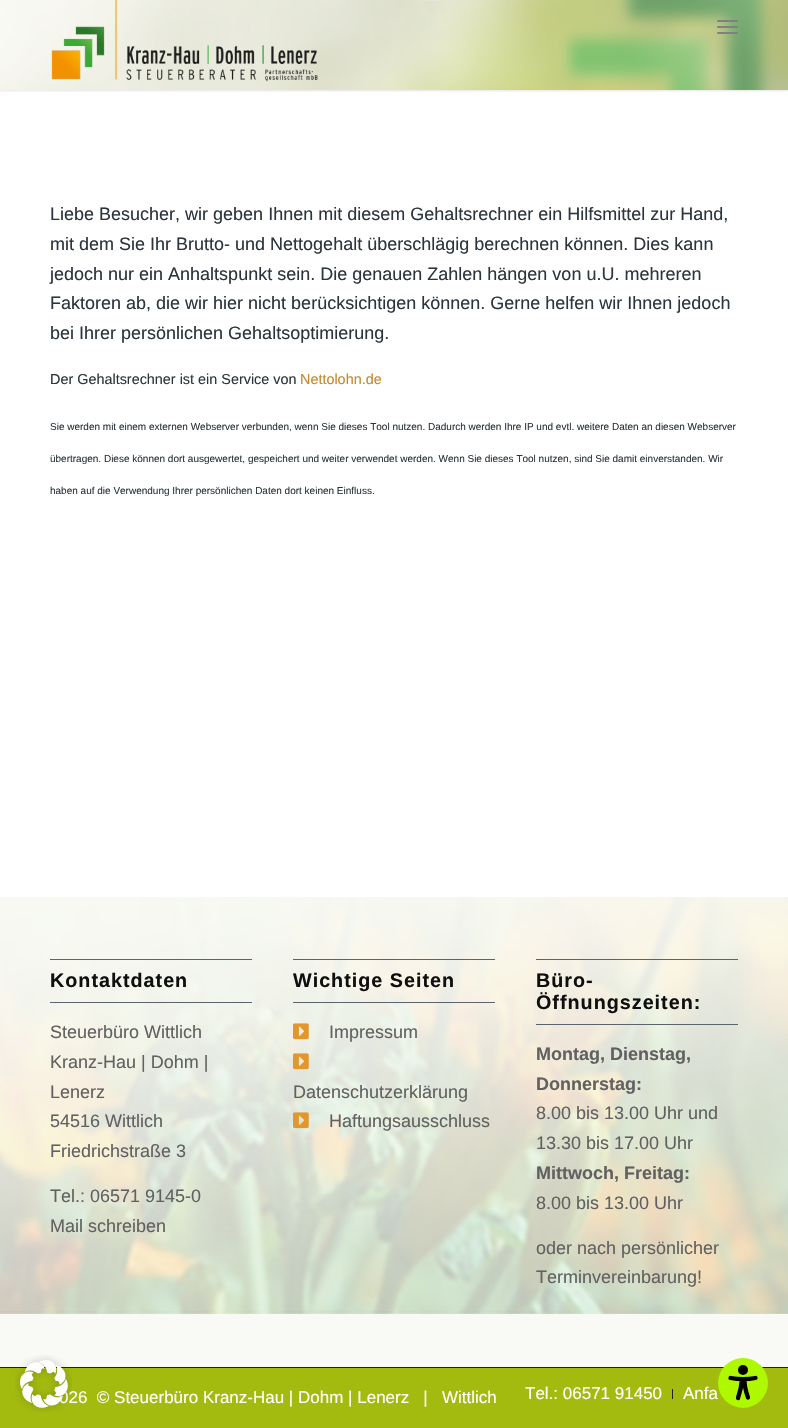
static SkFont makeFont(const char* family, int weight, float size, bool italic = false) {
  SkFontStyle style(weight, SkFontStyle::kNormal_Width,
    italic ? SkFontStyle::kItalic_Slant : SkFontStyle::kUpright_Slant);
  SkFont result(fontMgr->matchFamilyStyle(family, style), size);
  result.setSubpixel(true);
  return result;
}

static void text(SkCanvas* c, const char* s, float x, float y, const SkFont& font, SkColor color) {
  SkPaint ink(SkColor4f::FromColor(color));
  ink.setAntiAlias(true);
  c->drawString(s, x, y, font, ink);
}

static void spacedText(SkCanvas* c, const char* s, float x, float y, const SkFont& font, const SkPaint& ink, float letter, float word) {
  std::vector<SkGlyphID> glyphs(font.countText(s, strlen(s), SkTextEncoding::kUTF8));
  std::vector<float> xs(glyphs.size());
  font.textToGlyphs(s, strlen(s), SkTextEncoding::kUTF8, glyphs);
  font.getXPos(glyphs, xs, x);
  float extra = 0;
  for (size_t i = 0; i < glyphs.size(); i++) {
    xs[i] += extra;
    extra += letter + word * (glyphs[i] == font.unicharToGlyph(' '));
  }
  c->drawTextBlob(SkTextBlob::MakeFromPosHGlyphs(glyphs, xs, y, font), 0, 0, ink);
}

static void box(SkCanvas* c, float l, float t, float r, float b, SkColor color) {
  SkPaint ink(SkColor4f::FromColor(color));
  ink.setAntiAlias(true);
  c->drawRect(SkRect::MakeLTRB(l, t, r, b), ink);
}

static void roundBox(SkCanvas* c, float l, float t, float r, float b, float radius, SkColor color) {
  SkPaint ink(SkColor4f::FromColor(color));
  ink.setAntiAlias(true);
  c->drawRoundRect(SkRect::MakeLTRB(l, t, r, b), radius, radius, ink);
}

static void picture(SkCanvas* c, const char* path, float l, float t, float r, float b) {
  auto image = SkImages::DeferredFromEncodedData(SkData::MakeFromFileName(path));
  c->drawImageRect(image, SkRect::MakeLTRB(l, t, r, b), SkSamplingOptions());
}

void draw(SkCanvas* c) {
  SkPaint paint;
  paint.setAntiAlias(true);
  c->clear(0xffffffff);
  box(c, 0, 897, 788, 1367, 0xfff9faf5);
  box(c, 0, 1368, 788, 1428, 0xffa3ba0f);
  box(c, 0, 1367, 788, 1368, 0xff1f1f1f);
  SkFont face1 = makeFont("Liberation Sans", 400, 17);
  text(c, "026  © Steuerbüro Kranz-Hau | Dohm | Lenerz   |   Wittlich", 59, 1403, face1, 0xffffffff);
  picture(c, "img_01.png", 15, 1355, 72, 1412);
  c->save();
  c->clipRect(SkRect::MakeLTRB(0, 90, 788, 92));
  paint.setColor(0x1a000000);
  paint.setMaskFilter(SkMaskFilter::MakeBlur(kNormal_SkBlurStyle, 1));
  c->drawRect(SkRect::MakeLTRB(-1, -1, 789, 91), paint);
  paint.setMaskFilter(nullptr);
  c->restore();
  picture(c, "img_02.png", 0, 0, 788, 90);
  picture(c, "img_03.png", 51, 0, 318, 82);
  roundBox(c, 717, 26, 738, 28, 1, 0xff808080);
  roundBox(c, 717, 20, 738, 22, 1, 0xff808080);
  roundBox(c, 717, 32, 738, 34, 1, 0xff808080);
  SkFont face2 = makeFont("Liberation Sans", 400, 18);
  text(c, "Liebe Besucher, wir geben Ihnen mit diesem Gehaltsrechner ein Hilfsmittel zur Hand,", 50, 220, face2, 0xff2c353d);
  text(c, "mit dem Sie Ihr Brutto- und Nettogehalt überschlägig berechnen können. Dies kann", 50, 250, face2, 0xff2c353d);
  text(c, "jedoch nur ein Anhaltspunkt sein. Die genauen Zahlen hängen von u.U. mehreren", 50, 280, face2, 0xff2c353d);
  text(c, "Faktoren ab, die wir hier nicht berücksichtigen können. Gerne helfen wir Ihnen jedoch", 50, 309, face2, 0xff2c353d);
  text(c, "bei Ihrer persönlichen Gehaltsoptimierung.", 50, 339, face2, 0xff2c353d);
  SkFont face3 = makeFont("Liberation Sans", 400, 14.4f);
  text(c, "Der Gehaltsrechner ist ein Service von", 50, 384, face3, 0xff2c353d);
  text(c, "Nettolohn.de", 300, 384, face3, 0xffc7882a);
  SkFont face4 = makeFont("Liberation Sans", 400, 10);
  text(c, "Sie werden mit einem externen Webserver verbunden, wenn Sie dieses Tool nutzen. Dadurch werden Ihre IP und evtl. weitere Daten an diesen Webserver", 50, 430, face4, 0xff2c353d);
  text(c, "übertragen. Diese können dort ausgewertet, gespeichert und weiter verwendet werden. Wenn Sie dieses Tool nutzen, sind Sie damit einverstanden. Wir", 50, 462, face4, 0xff2c353d);
  text(c, "haben auf die Verwendung Ihrer persönlichen Daten dort keinen Einfluss.", 50, 494, face4, 0xff2c353d);
  picture(c, "img_04.png", 0, 897, 788, 1314);
  box(c, 50, 959, 252, 960, 0xff5b646b);
  box(c, 50, 1002, 252, 1003, 0xff5b646b);
  SkFont face5 = makeFont("Liberation Sans", 700, 19.75f);
  paint.setColor(0xff0f0f0f);
  spacedText(c, "Kontaktdaten", 50, 987, face5, paint, 1, 0);
  text(c, "Steuerbüro Wittlich", 50, 1038, face2, 0xff616161);
  text(c, "Kranz-Hau | Dohm |", 50, 1068, face2, 0xff616161);
  text(c, "Lenerz", 50, 1098, face2, 0xff616161);
  text(c, "54516 Wittlich", 50, 1127, face2, 0xff616161);
  text(c, "Friedrichstraße 3", 50, 1157, face2, 0xff616161);
  text(c, "Tel.: 06571 9145-0", 50, 1202, face2, 0xff616161);
  text(c, "Mail schreiben", 50, 1232, face2, 0xff616161);
  box(c, 293, 959, 495, 960, 0xff5b646b);
  box(c, 293, 1002, 495, 1003, 0xff5b646b);
  spacedText(c, "Wichtige Seiten", 293, 987, face5, paint, 1, 0);
  picture(c, "img_05.png", 293, 1023, 309, 1040);
  text(c, "Impressum", 329, 1038, face2, 0xff616161);
  picture(c, "img_06.png", 293, 1053, 309, 1070);
  text(c, "Datenschutzerklärung", 293, 1098, face2, 0xff616161);
  picture(c, "img_07.png", 293, 1112, 309, 1129);
  text(c, "Haftungsausschluss", 329, 1127, face2, 0xff616161);
  box(c, 536, 959, 738, 960, 0xff5b646b);
  box(c, 536, 1024, 738, 1025, 0xff5b646b);
  spacedText(c, "Büro-", 536, 987, face5, paint, 1, 0);
  spacedText(c, "Öffnungszeiten:", 536, 1009, face5, paint, 1, 0);
  SkFont face6 = makeFont("Liberation Sans", 700, 18);
  text(c, "Montag, Dienstag,", 536, 1060, face6, 0xff616161);
  text(c, "Donnerstag:", 536, 1090, face6, 0xff616161);
  text(c, "8.00 bis 13.00 Uhr und", 536, 1119, face2, 0xff616161);
  text(c, "13.30 bis 17.00 Uhr", 536, 1149, face2, 0xff616161);
  text(c, "Mittwoch, Freitag:", 536, 1179, face6, 0xff616161);
  text(c, "8.00 bis 13.00 Uhr", 536, 1209, face2, 0xff616161);
  text(c, "oder nach persönlicher", 536, 1254, face2, 0xff616161);
  text(c, "Terminvereinbarung!", 536, 1283, face2, 0xff616161);
  text(c, "Tel.: 06571 91450", 525, 1399, face1, 0xffffffff);
  box(c, 672, 1389, 673, 1399, 0xff1f1f1f);
  text(c, "Anfa", 683, 1399, face1, 0xffffffff);
  c->save();
  c->clipPath(SkPathBuilder().moveTo(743, 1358).cubicTo(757, 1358, 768, 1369, 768, 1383).cubicTo(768, 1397, 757, 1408, 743, 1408).cubicTo(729, 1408, 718, 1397, 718, 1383).cubicTo(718, 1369, 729, 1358, 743, 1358).close().detach(), true);
  paint.setColor(0x1a000000);
  paint.setMaskFilter(SkMaskFilter::MakeBlur(kNormal_SkBlurStyle, 4));
  c->drawRoundRect(SkRect::MakeLTRB(718, 1362, 768, 1412), 25, 25, paint);
  paint.setMaskFilter(nullptr);
  c->restore();
  paint.setColor(0xffaef900);
  c->drawCircle(743, 1383, 25, paint);
  paint.setColor(0xff000000);
  c->drawCircle(743, 1370, 5, paint);
  paint.setStyle(SkPaint::kStroke_Style);
  paint.setStrokeWidth(4.3f);
  paint.setStrokeCap(SkPaint::kRound_Cap);
  paint.setStrokeJoin(SkPaint::kRound_Join);
  c->drawPath(SkPathBuilder().moveTo(730.5f, 1378).cubicTo(739, 1379.5f, 747.5f, 1379.5f, 755.5f, 1378).moveTo(738, 1398).cubicTo(740, 1392, 741.5f, 1386, 742, 1379.5f).lineTo(744.5f, 1379.5f).cubicTo(744.5f, 1385.5f, 746, 1392, 748, 1397.5f).detach(), paint);
}
